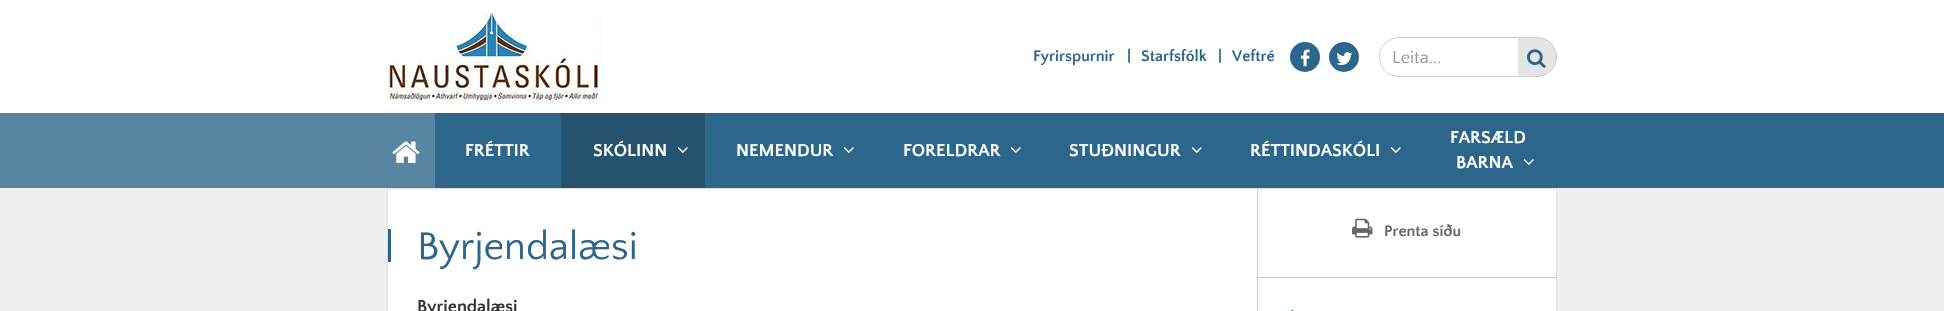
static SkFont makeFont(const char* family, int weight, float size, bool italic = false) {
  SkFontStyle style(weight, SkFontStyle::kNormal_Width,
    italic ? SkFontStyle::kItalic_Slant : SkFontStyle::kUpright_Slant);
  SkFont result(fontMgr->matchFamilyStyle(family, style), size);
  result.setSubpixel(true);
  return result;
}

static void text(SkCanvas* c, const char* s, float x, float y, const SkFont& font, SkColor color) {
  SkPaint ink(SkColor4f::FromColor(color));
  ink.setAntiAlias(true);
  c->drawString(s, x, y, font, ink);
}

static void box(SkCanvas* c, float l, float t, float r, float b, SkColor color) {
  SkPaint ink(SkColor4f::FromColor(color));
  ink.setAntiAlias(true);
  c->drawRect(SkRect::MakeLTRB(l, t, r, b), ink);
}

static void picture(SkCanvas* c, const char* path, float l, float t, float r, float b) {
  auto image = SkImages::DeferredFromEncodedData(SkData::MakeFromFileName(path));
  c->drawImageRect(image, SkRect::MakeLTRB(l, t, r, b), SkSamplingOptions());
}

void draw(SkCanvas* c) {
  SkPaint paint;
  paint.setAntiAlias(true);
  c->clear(0xfff0f0f0);
  box(c, 0, 0, 1944, 113, 0xffffffff);
  picture(c, "img_01.png", 387, 12, 602, 102);
  SkFont face1 = makeFont("Quattrocento Sans", 700, 16);
  text(c, "Fyrirspurnir", 1033, 61, face1, 0xff2d668b);
  text(c, "|", 1127, 61, face1, 0xff2d668b);
  text(c, "Starfsfólk", 1141, 61, face1, 0xff2d668b);
  text(c, "|", 1218, 61, face1, 0xff2d668b);
  text(c, "Veftré", 1232, 61, face1, 0xff2d668b);
  paint.setColor(0xff2d668b);
  c->drawCircle(1305, 57, 15, paint);
  picture(c, "img_02.png", 1300, 49, 1310, 67);
  c->drawCircle(1344, 57, 15, paint);
  picture(c, "img_03.png", 1336, 52, 1353, 65);
  paint.setColor(0xffe5e5e5);
  c->drawRoundRect(SkRect::MakeLTRB(1379.5f, 37.5f, 1556.5f, 76.5f), 19.5f, 19.5f, paint);
  paint.setStyle(SkPaint::kStroke_Style);
  paint.setStrokeWidth(1);
  paint.setColor(0xffcccccc);
  c->drawRoundRect(SkRect::MakeLTRB(1379.5f, 37.5f, 1556.5f, 76.5f), 19.5f, 19.5f, paint);
  paint.setStyle(SkPaint::kFill_Style);
  paint.setColor(0xffffffff);
  c->drawPath(SkPathBuilder().moveTo(1399, 38).lineTo(1518, 38).lineTo(1518, 76).lineTo(1399, 76).cubicTo(1388.5f, 76, 1380, 67.5f, 1380, 57).cubicTo(1380, 46.5f, 1388.5f, 38, 1399, 38).close().detach(), paint);
  SkFont face2 = makeFont("Quattrocento Sans", 400, 18);
  text(c, "Leita...", 1392, 63, face2, 0xff999999);
  picture(c, "img_04.png", 1527, 49, 1546, 68);
  box(c, 435, 113, 1944, 188, 0xff2d668b);
  box(c, 0, 113, 435, 188, 0xff5785a2);
  SkFont face3 = makeFont("Quattrocento Sans", 700, 18);
  text(c, "FRÉTTIR", 465, 156, face3, 0xffffffff);
  box(c, 561, 113, 705, 188, 0xff24526f);
  text(c, "SKÓLINN", 593, 156, face3, 0xffffffff);
  picture(c, "img_05.png", 677, 147, 688, 153);
  text(c, "NEMENDUR", 736, 156, face3, 0xffffffff);
  picture(c, "img_06.png", 843, 147, 854, 153);
  text(c, "FORELDRAR", 903, 156, face3, 0xffffffff);
  picture(c, "img_06.png", 1010, 147, 1021, 153);
  text(c, "STUÐNINGUR", 1069, 156, face3, 0xffffffff);
  picture(c, "img_06.png", 1191, 147, 1202, 153);
  text(c, "RÉTTINDASKÓLI", 1250, 156, face3, 0xffffffff);
  picture(c, "img_06.png", 1390, 147, 1401, 153);
  text(c, "FARSÆLD", 1450, 143, face3, 0xffffffff);
  text(c, "BARNA", 1456, 168, face3, 0xffffffff);
  picture(c, "img_06.png", 1523, 159, 1534, 165);
  picture(c, "img_07.png", 392, 141, 420, 163);
  c->drawRect(SkRect::MakeLTRB(387.5f, 188.5f, 1556.5f, 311.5f), paint);
  paint.setStyle(SkPaint::kStroke_Style);
  paint.setColor(0xffdddddd);
  c->drawRect(SkRect::MakeLTRB(387.5f, 188.5f, 1556.5f, 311.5f), paint);
  box(c, 388, 229, 391, 262, 0xff2d668b);
  SkFont face4 = makeFont("Quattrocento Sans", 400, 40);
  text(c, "Byrjendalæsi", 417, 259, face4, 0xff2d668b);
  text(c, "Byrjendalæsi", 417, 312, face3, 0xff333333);
  box(c, 1257, 189, 1258, 311, 0xffcccccc);
  box(c, 1258, 277, 1556, 278, 0xffcccccc);
  picture(c, "img_08.png", 1352, 218, 1373, 238);
  text(c, "Prenta síðu", 1384, 236, face1, 0xff666666);
  picture(c, "img_09.png", 1291, 309, 1294, 311);
}
